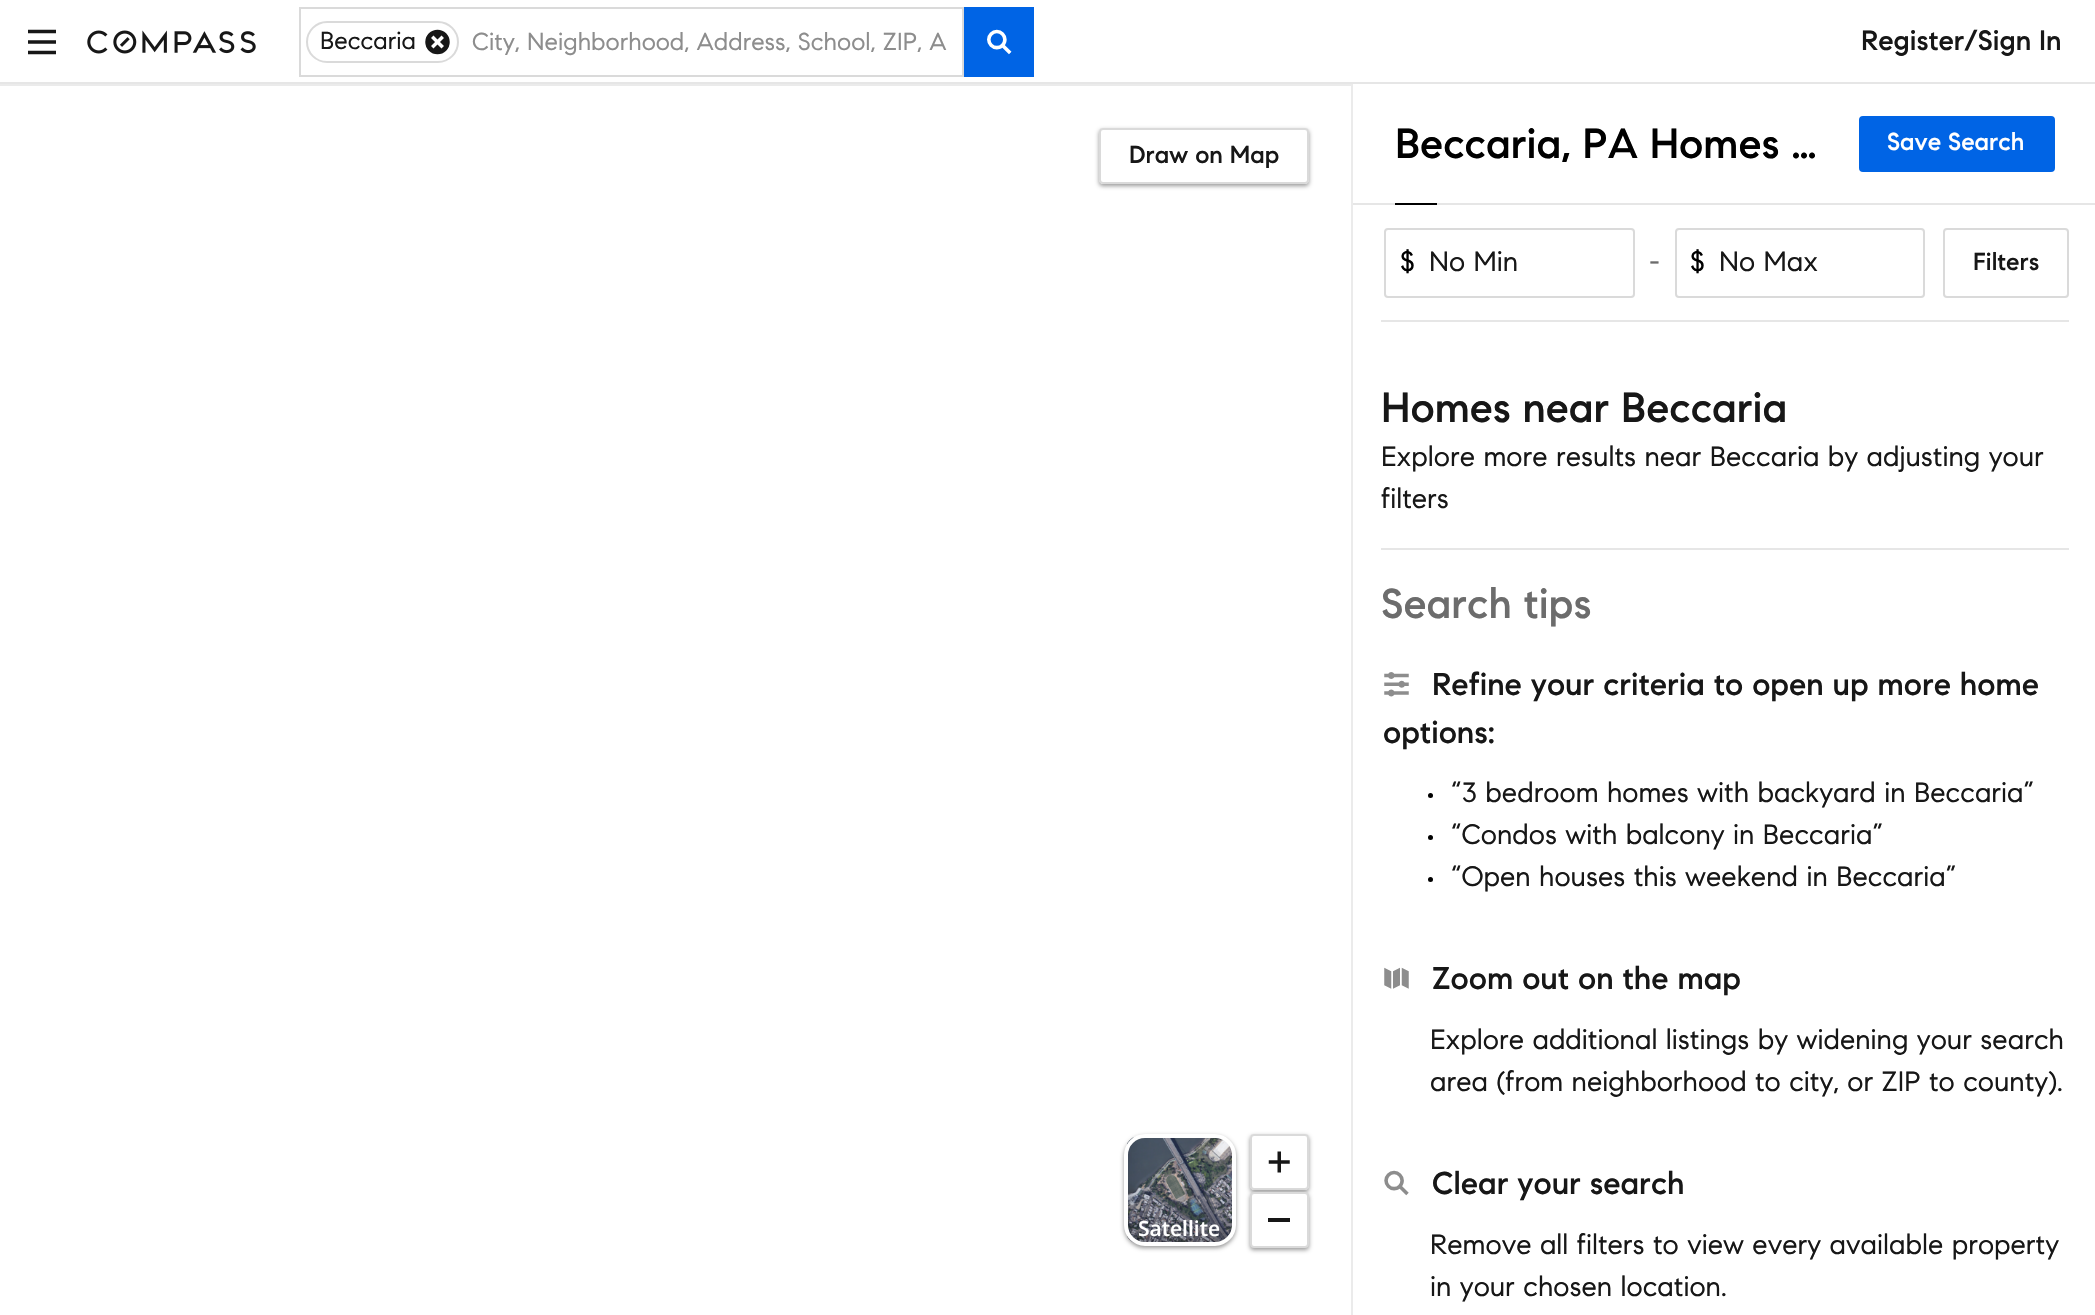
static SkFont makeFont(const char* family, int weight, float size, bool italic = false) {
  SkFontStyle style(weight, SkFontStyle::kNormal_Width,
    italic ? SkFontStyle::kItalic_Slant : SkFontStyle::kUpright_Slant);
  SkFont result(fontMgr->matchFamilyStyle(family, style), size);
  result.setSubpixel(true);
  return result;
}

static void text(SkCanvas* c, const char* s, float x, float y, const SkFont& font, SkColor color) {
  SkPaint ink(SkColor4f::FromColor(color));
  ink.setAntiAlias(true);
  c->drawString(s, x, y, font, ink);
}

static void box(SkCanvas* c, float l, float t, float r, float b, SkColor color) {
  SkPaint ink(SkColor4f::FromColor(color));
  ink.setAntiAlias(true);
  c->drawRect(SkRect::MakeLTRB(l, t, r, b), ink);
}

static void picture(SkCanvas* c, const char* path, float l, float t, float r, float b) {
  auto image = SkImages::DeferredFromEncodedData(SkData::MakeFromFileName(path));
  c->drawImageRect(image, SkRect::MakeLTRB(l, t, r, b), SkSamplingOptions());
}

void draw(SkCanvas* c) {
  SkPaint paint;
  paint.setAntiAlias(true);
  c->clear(0xffffffff);
  box(c, 0, 82, 2095, 84, 0xffe6e6e6);
  picture(c, "img_01.png", 28, 29, 56, 55);
  picture(c, "img_02.png", 87, 30, 256, 54);
  paint.setStyle(SkPaint::kStroke_Style);
  paint.setStrokeWidth(2);
  paint.setColor(0xffdadada);
  c->drawRect(SkRect::MakeLTRB(300, 8, 963, 76), paint);
  c->drawRoundRect(SkRect::MakeLTRB(307, 22, 458, 62), 20, 20, paint);
  SkFont face1 = makeFont("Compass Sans", 400, 24.5f);
  text(c, "Beccaria", 320, 49, face1, 0xff171717);
  picture(c, "img_03.png", 425, 29, 450, 55);
  text(c, "City, Neighborhood, Address, School, ZIP, A", 472, 50, face1, 0xff8d8d8d);
  box(c, 964, 7, 1034, 77, 0xff0064e5);
  picture(c, "img_04.png", 987, 29, 1012, 55);
  SkFont face2 = makeFont("Compass Sans", 500, 28);
  text(c, "Register/Sign In", 1861, 50, face2, 0xff171717);
  paint.setStyle(SkPaint::kFill_Style);
  paint.setColor(0xffebebeb);
  c->drawPath(SkPathBuilder().moveTo(0, 84).lineTo(1353, 84).lineTo(1351, 86).lineTo(0, 86).close().detach(), paint);
  paint.setColor(0x14000000);
  c->drawPath(SkPathBuilder().moveTo(1353, 84).lineTo(1353, 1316).lineTo(1351, 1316).lineTo(1351, 86).close().detach(), paint);
  c->save();
  c->clipPath(SkPathBuilder(SkPathFillType::kEvenOdd).moveTo(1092, 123).lineTo(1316, 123).lineTo(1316, 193).lineTo(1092, 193).close().moveTo(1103, 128).lineTo(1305, 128).cubicTo(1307, 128, 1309, 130, 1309, 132).lineTo(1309, 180).cubicTo(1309, 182, 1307, 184, 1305, 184).lineTo(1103, 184).cubicTo(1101, 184, 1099, 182, 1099, 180).lineTo(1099, 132).cubicTo(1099, 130, 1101, 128, 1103, 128).close().detach(), true);
  paint.setColor(0x66000000);
  paint.setMaskFilter(SkMaskFilter::MakeBlur(kNormal_SkBlurStyle, 2));
  c->drawRoundRect(SkRect::MakeLTRB(1099, 130, 1309, 186), 4, 4, paint);
  paint.setMaskFilter(nullptr);
  c->restore();
  paint.setStyle(SkPaint::kStroke_Style);
  paint.setColor(0xffdadada);
  c->drawRoundRect(SkRect::MakeLTRB(1100, 129, 1308, 183), 3, 3, paint);
  SkFont face3 = makeFont("Compass Sans", 500, 24.5f);
  text(c, "Draw on Map", 1129, 163, face3, 0xff171717);
  paint.setStyle(SkPaint::kFill_Style);
  paint.setColor(0x66000000);
  paint.setMaskFilter(SkMaskFilter::MakeBlur(kNormal_SkBlurStyle, 2));
  c->drawRoundRect(SkRect::MakeLTRB(1124, 1136, 1236, 1248), 21, 21, paint);
  paint.setMaskFilter(nullptr);
  picture(c, "img_05.png", 1127, 1137, 1232, 1243);
  paint.setStyle(SkPaint::kStroke_Style);
  paint.setStrokeWidth(4);
  paint.setColor(0xffffffff);
  c->drawRoundRect(SkRect::MakeLTRB(1126, 1136, 1234, 1244), 19, 19, paint);
  SkFont face4 = makeFont("Open Sans", 600, 21);
  text(c, "Satellite", 1138, 1236, face4, 0xffffffff);
  c->save();
  c->clipPath(SkPathBuilder(SkPathFillType::kEvenOdd).moveTo(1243, 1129).lineTo(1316, 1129).lineTo(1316, 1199).lineTo(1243, 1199).close().moveTo(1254, 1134).lineTo(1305, 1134).cubicTo(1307, 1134, 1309, 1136, 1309, 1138).lineTo(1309, 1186).cubicTo(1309, 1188, 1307, 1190, 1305, 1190).lineTo(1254, 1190).cubicTo(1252, 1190, 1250, 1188, 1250, 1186).lineTo(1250, 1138).cubicTo(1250, 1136, 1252, 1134, 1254, 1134).close().detach(), true);
  paint.setStyle(SkPaint::kFill_Style);
  paint.setColor(0x66000000);
  paint.setMaskFilter(SkMaskFilter::MakeBlur(kNormal_SkBlurStyle, 2));
  c->drawRoundRect(SkRect::MakeLTRB(1250, 1136, 1309, 1192), 4, 4, paint);
  paint.setMaskFilter(nullptr);
  c->restore();
  paint.setStyle(SkPaint::kStroke_Style);
  paint.setStrokeWidth(2);
  paint.setColor(0xffdadada);
  c->drawRoundRect(SkRect::MakeLTRB(1251, 1135, 1308, 1189), 3, 3, paint);
  picture(c, "img_06.png", 1268, 1151, 1290, 1173);
  paint.setStyle(SkPaint::kFill_Style);
  paint.setColor(0x66000000);
  paint.setMaskFilter(SkMaskFilter::MakeBlur(kNormal_SkBlurStyle, 2));
  c->drawRoundRect(SkRect::MakeLTRB(1250, 1194, 1309, 1250), 4, 4, paint);
  paint.setMaskFilter(nullptr);
  paint.setColor(0xffffffff);
  c->drawRoundRect(SkRect::MakeLTRB(1251, 1193, 1308, 1247), 3, 3, paint);
  paint.setStyle(SkPaint::kStroke_Style);
  paint.setColor(0xffdadada);
  c->drawRoundRect(SkRect::MakeLTRB(1251, 1193, 1308, 1247), 3, 3, paint);
  box(c, 1268, 1218, 1290, 1222, 0xff171717);
  box(c, 1353, 203, 2095, 205, 0xffe6e6e6);
  SkFont face5 = makeFont("Compass Sans", 500, 42);
  text(c, "Beccaria, PA Homes …", 1395, 158, face5, 0xff000000);
  paint.setStyle(SkPaint::kFill_Style);
  paint.setColor(0xff0064e5);
  c->drawRoundRect(SkRect::MakeLTRB(1860, 117, 2054, 171), 3, 3, paint);
  paint.setStyle(SkPaint::kStroke_Style);
  c->drawRoundRect(SkRect::MakeLTRB(1860, 117, 2054, 171), 3, 3, paint);
  text(c, "Save Search", 1887, 150, face3, 0xffffffff);
  box(c, 1395, 203, 1437, 205, 0xff000000);
  paint.setColor(0xffdadada);
  c->drawRoundRect(SkRect::MakeLTRB(1385, 229, 1634, 297), 3, 3, paint);
  SkFont face6 = makeFont("Compass Sans", 400, 28);
  text(c, "$", 1400, 271, face6, 0xff000000);
  text(c, "No Min", 1429, 271, face6, 0xff171717);
  text(c, "-", 1649, 271, face6, 0xff6c6c6c);
  c->drawRoundRect(SkRect::MakeLTRB(1676, 229, 1924, 297), 3, 3, paint);
  text(c, "$", 1690, 271, face6, 0xff000000);
  text(c, "No Max", 1719, 271, face6, 0xff171717);
  c->drawRoundRect(SkRect::MakeLTRB(1944, 229, 2068, 297), 3, 3, paint);
  text(c, "Filters", 1973, 270, face3, 0xff171717);
  box(c, 1381, 320, 2069, 322, 0xffe6e6e6);
  box(c, 1381, 548, 2069, 550, 0xffe6e6e6);
  text(c, "Homes near Beccaria", 1381, 422, face5, 0xff171717);
  text(c, "Explore more results near Beccaria by adjusting your", 1381, 466, face6, 0xff171717);
  text(c, "filters", 1381, 508, face6, 0xff171717);
  text(c, "Search tips", 1381, 618, face5, 0xff6c6c6c);
  picture(c, "img_07.png", 1384, 672, 1409, 697);
  SkFont face7 = makeFont("Compass Sans", 500, 31.5f);
  text(c, "Refine your criteria to open up more home", 1432, 695, face7, 0xff171717);
  text(c, "options:", 1383, 743, face7, 0xff171717);
  paint.setStyle(SkPaint::kFill_Style);
  paint.setColor(0xff000000);
  c->drawCircle(1430.5f, 795.5f, 2.5f, paint);
  text(c, "“3 bedroom homes with backyard in Beccaria”", 1451, 802, face6, 0xff171717);
  c->drawCircle(1430.5f, 837.5f, 2.5f, paint);
  text(c, "“Condos with balcony in Beccaria”", 1451, 844, face6, 0xff171717);
  c->drawCircle(1430.5f, 879.5f, 2.5f, paint);
  text(c, "“Open houses this weekend in Beccaria”", 1451, 886, face6, 0xff171717);
  picture(c, "img_08.png", 1384, 967, 1409, 989);
  text(c, "Zoom out on the map", 1432, 989, face7, 0xff171717);
  text(c, "Explore additional listings by widening your search", 1430, 1049, face6, 0xff171717);
  text(c, "area (from neighborhood to city, or ZIP to county).", 1430, 1091, face6, 0xff171717);
  picture(c, "img_09.png", 1384, 1170, 1409, 1196);
  text(c, "Clear your search", 1432, 1194, face7, 0xff171717);
  text(c, "Remove all filters to view every available property", 1430, 1254, face6, 0xff171717);
  text(c, "in your chosen location.", 1430, 1296, face6, 0xff171717);
}
